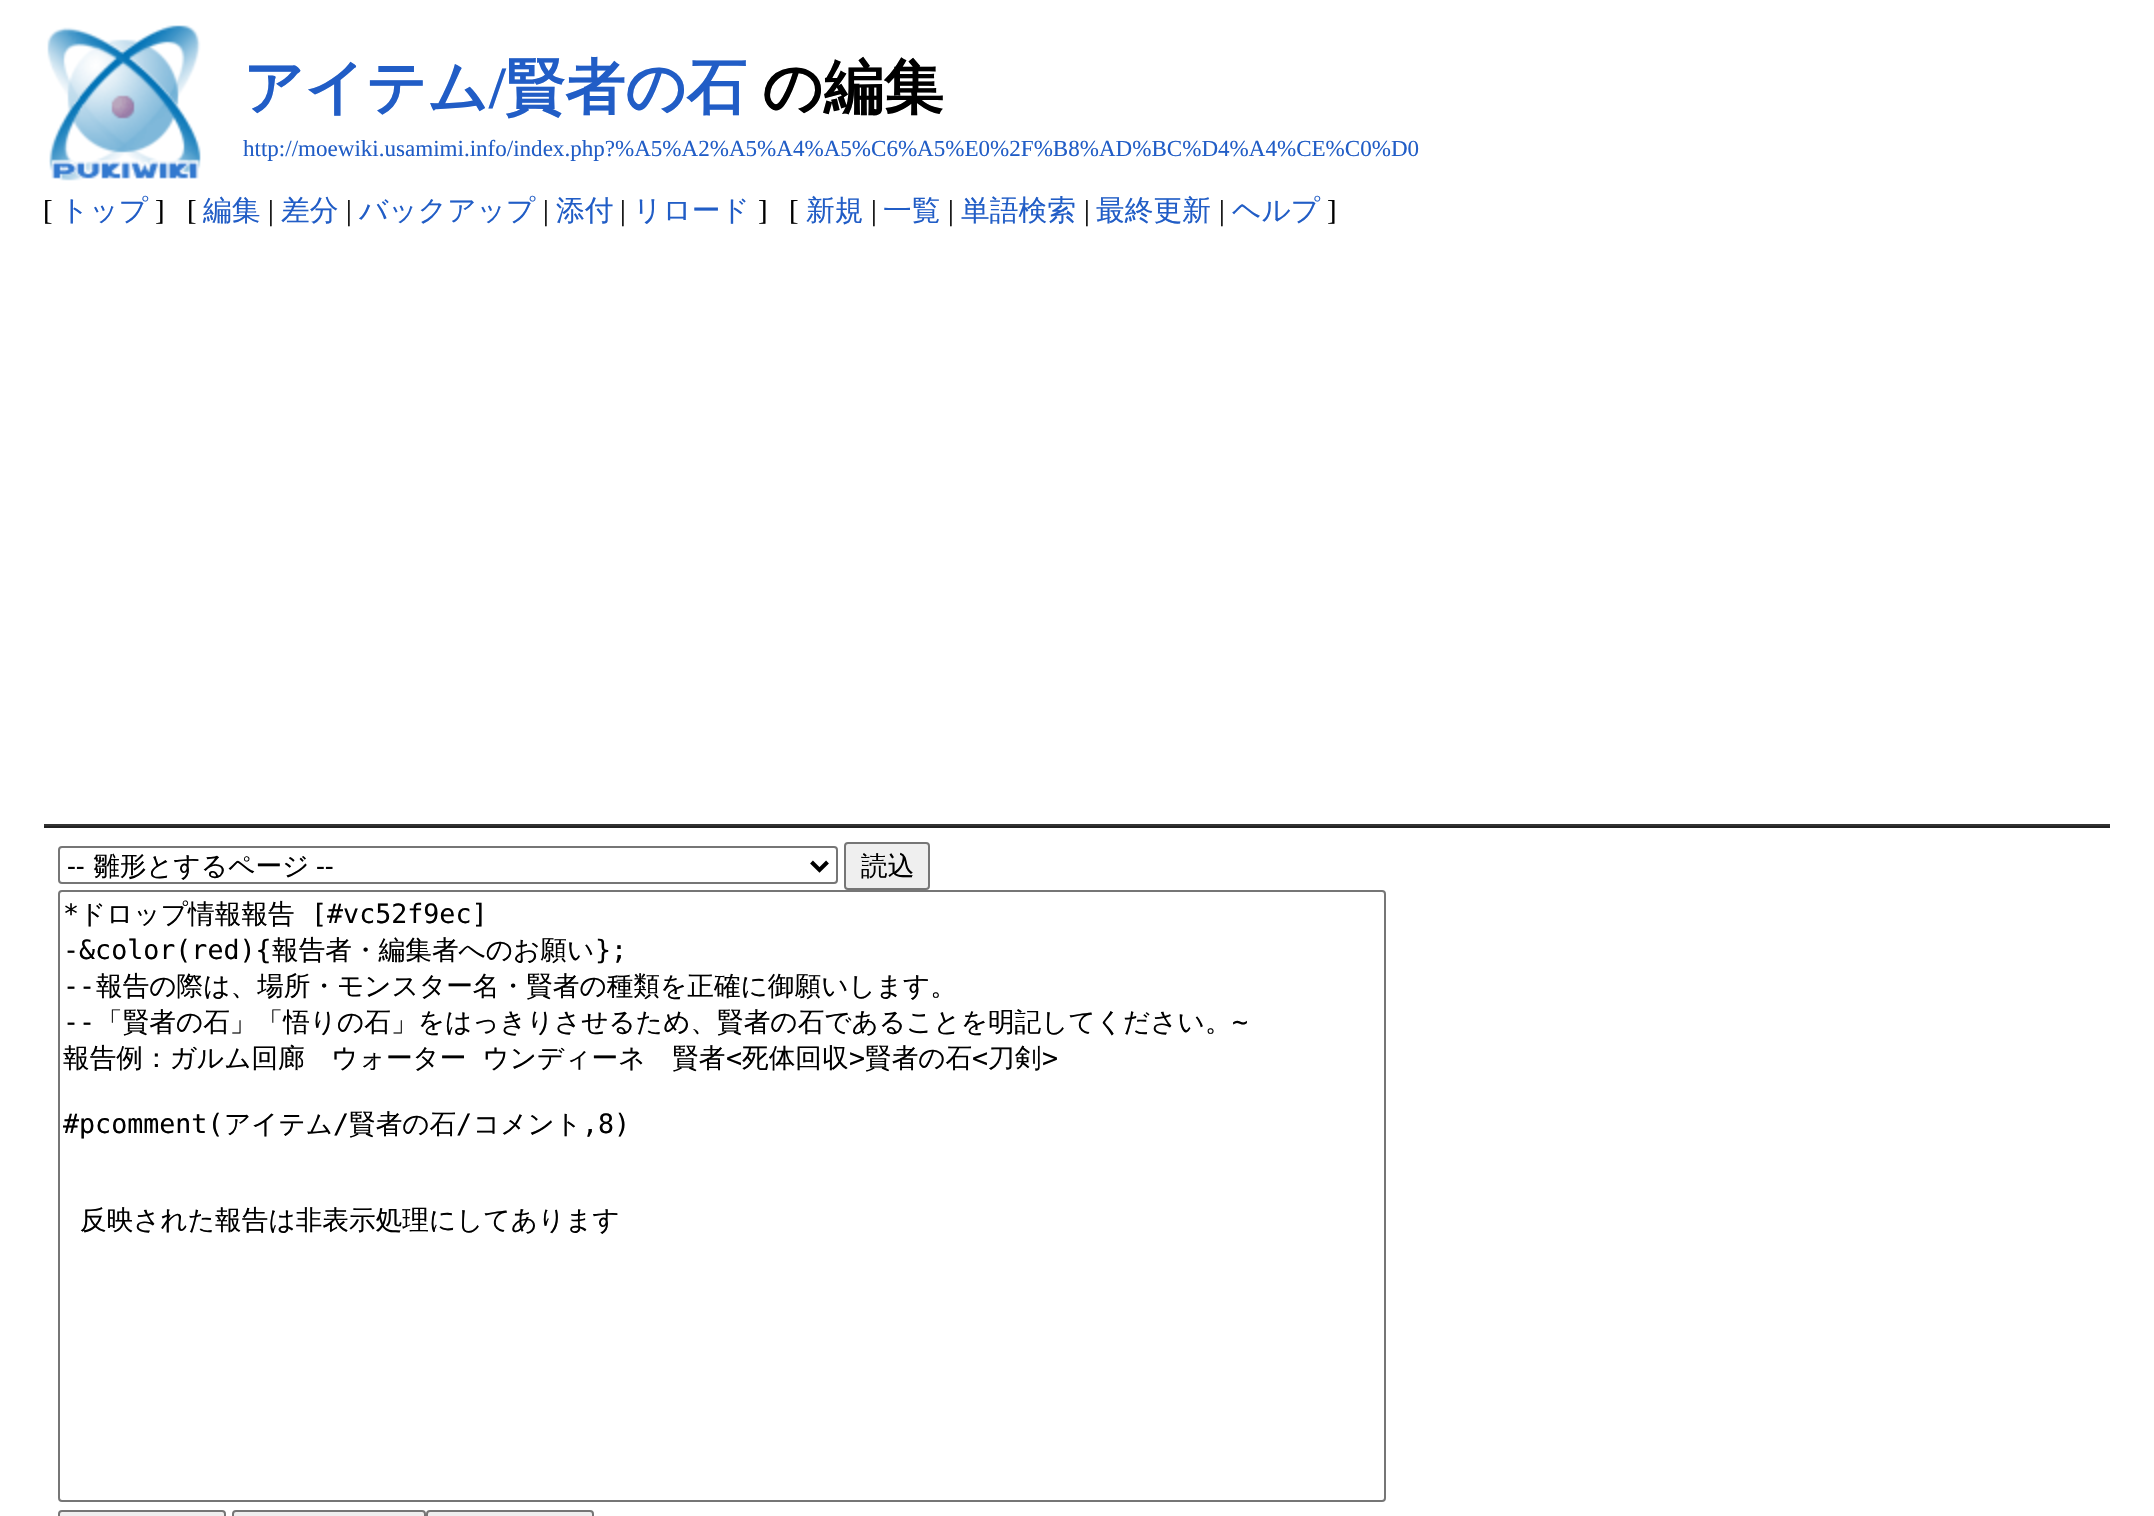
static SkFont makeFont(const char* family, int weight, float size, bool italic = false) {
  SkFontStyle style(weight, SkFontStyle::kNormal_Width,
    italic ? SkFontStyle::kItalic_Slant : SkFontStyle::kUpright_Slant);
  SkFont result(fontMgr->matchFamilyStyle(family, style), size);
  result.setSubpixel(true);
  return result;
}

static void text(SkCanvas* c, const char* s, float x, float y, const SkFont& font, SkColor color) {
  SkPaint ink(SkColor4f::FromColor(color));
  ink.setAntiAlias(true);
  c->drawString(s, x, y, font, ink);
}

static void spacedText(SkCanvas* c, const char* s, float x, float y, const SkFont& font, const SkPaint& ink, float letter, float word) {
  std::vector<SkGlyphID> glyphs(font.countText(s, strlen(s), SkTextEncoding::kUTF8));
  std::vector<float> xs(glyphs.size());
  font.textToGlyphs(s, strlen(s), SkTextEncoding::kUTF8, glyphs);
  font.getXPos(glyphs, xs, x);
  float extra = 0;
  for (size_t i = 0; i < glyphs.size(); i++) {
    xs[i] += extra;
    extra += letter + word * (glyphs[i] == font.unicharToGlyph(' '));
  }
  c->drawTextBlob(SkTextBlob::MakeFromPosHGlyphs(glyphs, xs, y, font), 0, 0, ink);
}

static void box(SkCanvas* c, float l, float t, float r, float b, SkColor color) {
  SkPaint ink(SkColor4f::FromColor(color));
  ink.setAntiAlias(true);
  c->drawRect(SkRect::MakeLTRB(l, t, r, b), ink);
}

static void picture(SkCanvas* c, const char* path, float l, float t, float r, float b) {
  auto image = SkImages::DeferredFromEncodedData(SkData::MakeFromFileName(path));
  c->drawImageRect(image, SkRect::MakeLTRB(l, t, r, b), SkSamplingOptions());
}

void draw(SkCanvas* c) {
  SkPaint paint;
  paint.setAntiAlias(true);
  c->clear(0xffffffff);
  picture(c, "img_01.png", 47, 25, 201, 181);
  SkFont face1 = makeFont("WenQuanYi Zen Hei", 700, 60);
  text(c, "アイテム", 243, 108, face1, 0xff215dc6);
  SkFont face2 = makeFont("Liberation Serif", 700, 60);
  text(c, "/", 489, 108, face2, 0xff215dc6);
  text(c, "賢者の石", 505, 108, face1, 0xff215dc6);
  text(c, "の編集", 762, 108, face1, 0xff000000);
  SkFont face3 = makeFont("Liberation Serif", 400, 23.05f);
  text(c, "http://moewiki.usamimi.info/index.php?%A5%A2%A5%A4%A5%C6%A5%E0%2F%B8%AD%BC%D4%A4%CE%C0%D0", 243, 156, face3, 0xff215dc6);
  SkFont face4 = makeFont("Liberation Serif", 400, 28.75f);
  text(c, "[", 43, 220, face4, 0xff000000);
  SkFont face5 = makeFont("WenQuanYi Zen Hei", 500, 28.75f);
  text(c, "トップ", 60, 220, face5, 0xff215dc6);
  text(c, "]", 155, 220, face4, 0xff000000);
  text(c, "[", 187, 220, face4, 0xff000000);
  text(c, "編集", 203, 220, face5, 0xff215dc6);
  text(c, "|", 268, 220, face4, 0xff000000);
  text(c, "差分", 281, 220, face5, 0xff215dc6);
  text(c, "|", 346, 220, face4, 0xff000000);
  text(c, "バックアップ", 359, 220, face5, 0xff215dc6);
  text(c, "|", 543, 220, face4, 0xff000000);
  text(c, "添付", 556, 220, face5, 0xff215dc6);
  text(c, "|", 620, 220, face4, 0xff000000);
  text(c, "リロード", 633, 220, face5, 0xff215dc6);
  text(c, "]", 758, 220, face4, 0xff000000);
  text(c, "[", 789, 220, face4, 0xff000000);
  text(c, "新規", 806, 220, face5, 0xff215dc6);
  text(c, "|", 871, 220, face4, 0xff000000);
  text(c, "一覧", 883, 220, face5, 0xff215dc6);
  text(c, "|", 948, 220, face4, 0xff000000);
  text(c, "単語検索", 961, 220, face5, 0xff215dc6);
  text(c, "|", 1084, 220, face4, 0xff000000);
  text(c, "最終更新", 1096, 220, face5, 0xff215dc6);
  text(c, "|", 1219, 220, face4, 0xff000000);
  text(c, "ヘルプ", 1232, 220, face5, 0xff215dc6);
  text(c, "]", 1327, 220, face4, 0xff000000);
  box(c, 44, 824, 2110, 826, 0xff333333);
  box(c, 44, 826, 2110, 828, 0xff222222);
  paint.setStyle(SkPaint::kStroke_Style);
  paint.setStrokeWidth(2);
  paint.setColor(0xff767676);
  c->drawRoundRect(SkRect::MakeLTRB(59, 847, 837, 883), 3, 3, paint);
  paint.setStrokeWidth(4);
  paint.setColor(0xff000000);
  c->drawPath(SkPathBuilder().moveTo(811.5f, 862).lineTo(819.5f, 870).lineTo(827.5f, 862).detach(), paint);
  SkFont face6 = makeFont("Liberation Sans", 400, 26.65f);
  text(c, "--", 67, 875, face6, 0xff000000);
  SkFont face7 = makeFont("WenQuanYi Zen Hei", 500, 26.65f);
  text(c, "雛形とするページ", 93, 875, face7, 0xff000000);
  text(c, "--", 316, 875, face6, 0xff000000);
  paint.setStyle(SkPaint::kFill_Style);
  paint.setColor(0xffefefef);
  c->drawRoundRect(SkRect::MakeLTRB(845, 843, 929, 889), 3, 3, paint);
  paint.setStyle(SkPaint::kStroke_Style);
  paint.setStrokeWidth(2);
  paint.setColor(0xff767676);
  c->drawRoundRect(SkRect::MakeLTRB(845, 843, 929, 889), 3, 3, paint);
  text(c, "読込", 861, 875, face7, 0xff000000);
  c->drawRoundRect(SkRect::MakeLTRB(59, 891, 1385, 1501), 3, 3, paint);
  SkFont face8 = makeFont("DejaVu Sans Mono", 400, 26.65f);
  text(c, "*", 63, 923, face8, 0xff000000);
  text(c, "ドロップ情報報告", 79, 923, face7, 0xff000000);
  text(c, "[#vc52f9ec]", 311, 923, face8, 0xff000000);
  text(c, "-&color(red){", 63, 959, face8, 0xff000000);
  text(c, "報告者・編集者へのお願い", 272, 959, face7, 0xff000000);
  text(c, "};", 595, 959, face8, 0xff000000);
  text(c, "--", 63, 995, face8, 0xff000000);
  text(c, "報告の際は、場所・モンスター名・賢者の種類を正確に御願いします。", 96, 995, face7, 0xff000000);
  text(c, "--", 63, 1031, face8, 0xff000000);
  text(c, "「賢者の石」「悟りの石」をはっきりさせるため、賢者の石であることを明記してください。", 96, 1031, face7, 0xff000000);
  text(c, "~", 1232, 1031, face8, 0xff000000);
  paint.setStyle(SkPaint::kFill_Style);
  paint.setColor(0xff000000);
  spacedText(c, "報告例：ガルム回廊　ウォーター ウンディーネ　賢者", 63, 1067, face7, paint, 0, 8);
  text(c, "<", 726, 1067, face8, 0xff000000);
  text(c, "死体回収", 742, 1067, face7, 0xff000000);
  text(c, ">", 849, 1067, face8, 0xff000000);
  text(c, "賢者の石", 865, 1067, face7, 0xff000000);
  text(c, "<", 972, 1067, face8, 0xff000000);
  text(c, "刀剣", 988, 1067, face7, 0xff000000);
  text(c, ">", 1042, 1067, face8, 0xff000000);
  text(c, "#pcomment(", 63, 1133, face8, 0xff000000);
  text(c, "アイテム", 224, 1133, face7, 0xff000000);
  text(c, "/", 333, 1133, face8, 0xff000000);
  text(c, "賢者の石", 349, 1133, face7, 0xff000000);
  text(c, "/", 456, 1133, face8, 0xff000000);
  text(c, "コメント", 473, 1133, face7, 0xff000000);
  text(c, ",8)", 582, 1133, face8, 0xff000000);
  text(c, "反映された報告は非表示処理にしてあります", 80, 1229, face7, 0xff000000);
  paint.setColor(0xffefefef);
  c->drawRoundRect(SkRect::MakeLTRB(59, 1511, 225, 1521), 3, 3, paint);
  paint.setStyle(SkPaint::kStroke_Style);
  paint.setColor(0xff767676);
  c->drawRoundRect(SkRect::MakeLTRB(59, 1511, 225, 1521), 3, 3, paint);
  paint.setStyle(SkPaint::kFill_Style);
  paint.setColor(0xffefefef);
  c->drawRoundRect(SkRect::MakeLTRB(233, 1511, 425, 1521), 3, 3, paint);
  paint.setStyle(SkPaint::kStroke_Style);
  paint.setColor(0xff767676);
  c->drawRoundRect(SkRect::MakeLTRB(233, 1511, 425, 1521), 3, 3, paint);
  paint.setStyle(SkPaint::kFill_Style);
  paint.setColor(0xffefefef);
  c->drawRoundRect(SkRect::MakeLTRB(427, 1511, 593, 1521), 3, 3, paint);
  paint.setStyle(SkPaint::kStroke_Style);
  paint.setColor(0xff767676);
  c->drawRoundRect(SkRect::MakeLTRB(427, 1511, 593, 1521), 3, 3, paint);
}
